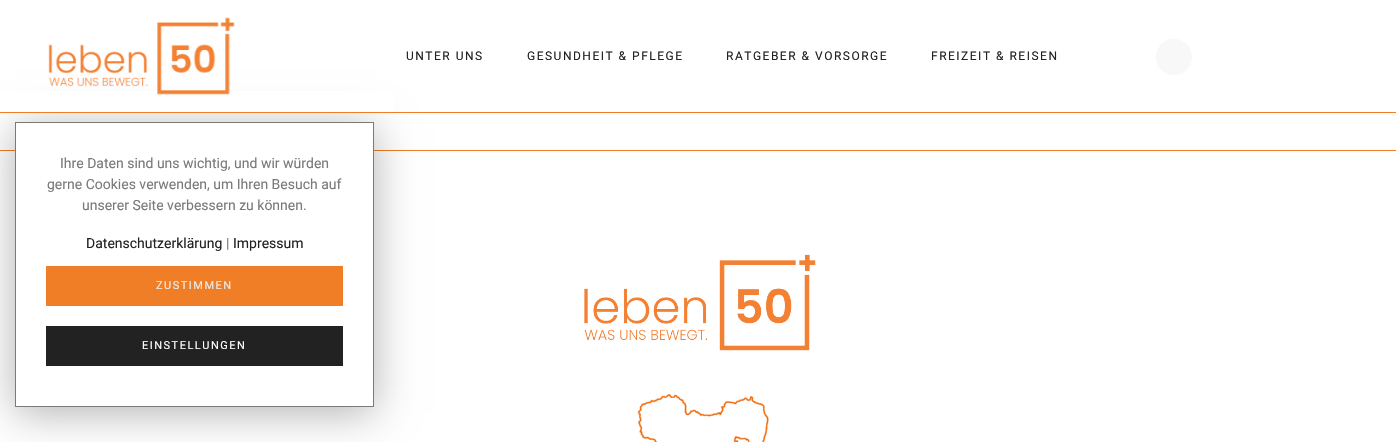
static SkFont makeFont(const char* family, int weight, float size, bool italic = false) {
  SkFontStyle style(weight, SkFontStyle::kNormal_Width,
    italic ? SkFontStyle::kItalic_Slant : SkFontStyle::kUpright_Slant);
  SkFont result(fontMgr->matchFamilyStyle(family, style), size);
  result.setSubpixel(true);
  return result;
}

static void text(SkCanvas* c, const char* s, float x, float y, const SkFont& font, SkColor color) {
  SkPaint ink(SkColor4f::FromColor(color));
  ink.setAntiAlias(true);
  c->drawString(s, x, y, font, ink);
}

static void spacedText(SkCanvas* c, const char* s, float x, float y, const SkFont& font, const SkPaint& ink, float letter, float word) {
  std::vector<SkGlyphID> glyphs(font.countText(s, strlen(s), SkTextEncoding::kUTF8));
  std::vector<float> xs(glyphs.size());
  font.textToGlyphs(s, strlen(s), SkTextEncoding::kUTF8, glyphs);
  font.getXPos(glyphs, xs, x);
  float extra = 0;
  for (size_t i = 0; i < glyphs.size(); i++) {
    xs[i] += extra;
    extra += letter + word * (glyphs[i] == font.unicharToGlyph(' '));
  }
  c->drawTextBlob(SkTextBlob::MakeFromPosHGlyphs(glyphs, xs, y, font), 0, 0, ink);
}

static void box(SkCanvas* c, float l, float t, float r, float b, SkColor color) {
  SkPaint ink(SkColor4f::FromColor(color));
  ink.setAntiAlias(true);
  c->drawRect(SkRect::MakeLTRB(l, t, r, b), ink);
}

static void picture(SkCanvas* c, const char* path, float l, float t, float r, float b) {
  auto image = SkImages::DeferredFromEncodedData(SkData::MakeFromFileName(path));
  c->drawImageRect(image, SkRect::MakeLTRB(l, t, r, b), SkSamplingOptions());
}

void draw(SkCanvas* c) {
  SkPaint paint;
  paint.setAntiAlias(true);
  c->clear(0xffffffff);
  box(c, 0, 150, 1396, 151, 0xfff07e26);
  paint.setColor(0x4d000000);
  paint.setMaskFilter(SkMaskFilter::MakeBlur(kNormal_SkBlurStyle, 20));
  c->drawRect(SkRect::MakeLTRB(15, 128, 374, 413), paint);
  paint.setMaskFilter(nullptr);
  box(c, 0, 91, 394, 112, 0xffffffff);
  box(c, 0, 112, 1396, 113, 0xfff07e26);
  picture(c, "img_01.png", 48, 17, 235, 95);
  SkFont face1 = makeFont("Roboto", 400, 12);
  paint.setColor(0xff222222);
  spacedText(c, "UNTER UNS", 406, 60, face1, paint, 1.5f, 0);
  spacedText(c, "GESUNDHEIT & PFLEGE", 527, 60, face1, paint, 1.5f, 0);
  spacedText(c, "RATGEBER & VORSORGE", 726, 60, face1, paint, 1.5f, 0);
  spacedText(c, "FREIZEIT & REISEN", 931, 60, face1, paint, 1.5f, 0);
  paint.setColor(0xfff8f8f8);
  c->drawCircle(1174, 57, 18, paint);
  picture(c, "img_02.png", 584, 254, 816, 351);
  picture(c, "img_03.png", 637, 393, 769, 442);
  paint.setColor(0xffffffff);
  c->drawRect(SkRect::MakeLTRB(15.5f, 122.5f, 373.5f, 406.5f), paint);
  paint.setStyle(SkPaint::kStroke_Style);
  paint.setStrokeWidth(1);
  paint.setColor(0xff7a7a7a);
  c->drawRect(SkRect::MakeLTRB(15.5f, 122.5f, 373.5f, 406.5f), paint);
  SkFont face2 = makeFont("Roboto", 400, 14);
  text(c, "Ihre Daten sind uns wichtig, und wir würden", 60, 168, face2, 0xff7a7a7a);
  text(c, "gerne Cookies verwenden, um Ihren Besuch auf", 47, 189, face2, 0xff7a7a7a);
  text(c, "unserer Seite verbessern zu können.", 82, 210, face2, 0xff7a7a7a);
  text(c, "Datenschutzerklärung", 86, 248, face2, 0xff222222);
  text(c, "|", 226, 248, face2, 0xff7a7a7a);
  text(c, "Impressum", 233, 248, face2, 0xff222222);
  box(c, 46, 266, 343, 306, 0xfff07e26);
  SkFont face3 = makeFont("Roboto", 400, 11);
  paint.setStyle(SkPaint::kFill_Style);
  paint.setColor(0xffececec);
  spacedText(c, "ZUSTIMMEN", 156, 289, face3, paint, 1.5f, 0);
  box(c, 46, 326, 343, 366, 0xff222222);
  paint.setColor(0xffffffff);
  spacedText(c, "EINSTELLUNGEN", 142, 349, face3, paint, 1.5f, 0);
}
